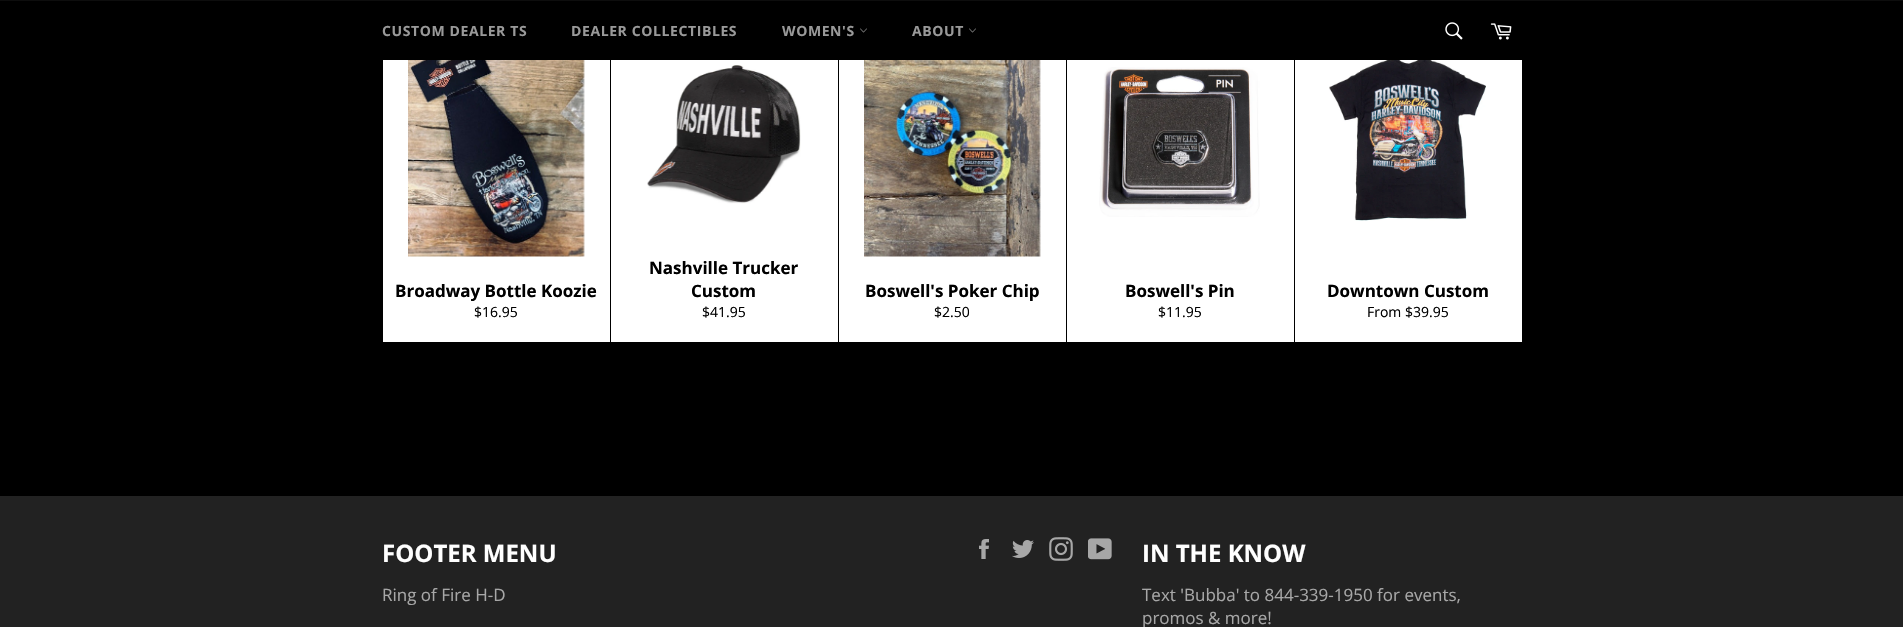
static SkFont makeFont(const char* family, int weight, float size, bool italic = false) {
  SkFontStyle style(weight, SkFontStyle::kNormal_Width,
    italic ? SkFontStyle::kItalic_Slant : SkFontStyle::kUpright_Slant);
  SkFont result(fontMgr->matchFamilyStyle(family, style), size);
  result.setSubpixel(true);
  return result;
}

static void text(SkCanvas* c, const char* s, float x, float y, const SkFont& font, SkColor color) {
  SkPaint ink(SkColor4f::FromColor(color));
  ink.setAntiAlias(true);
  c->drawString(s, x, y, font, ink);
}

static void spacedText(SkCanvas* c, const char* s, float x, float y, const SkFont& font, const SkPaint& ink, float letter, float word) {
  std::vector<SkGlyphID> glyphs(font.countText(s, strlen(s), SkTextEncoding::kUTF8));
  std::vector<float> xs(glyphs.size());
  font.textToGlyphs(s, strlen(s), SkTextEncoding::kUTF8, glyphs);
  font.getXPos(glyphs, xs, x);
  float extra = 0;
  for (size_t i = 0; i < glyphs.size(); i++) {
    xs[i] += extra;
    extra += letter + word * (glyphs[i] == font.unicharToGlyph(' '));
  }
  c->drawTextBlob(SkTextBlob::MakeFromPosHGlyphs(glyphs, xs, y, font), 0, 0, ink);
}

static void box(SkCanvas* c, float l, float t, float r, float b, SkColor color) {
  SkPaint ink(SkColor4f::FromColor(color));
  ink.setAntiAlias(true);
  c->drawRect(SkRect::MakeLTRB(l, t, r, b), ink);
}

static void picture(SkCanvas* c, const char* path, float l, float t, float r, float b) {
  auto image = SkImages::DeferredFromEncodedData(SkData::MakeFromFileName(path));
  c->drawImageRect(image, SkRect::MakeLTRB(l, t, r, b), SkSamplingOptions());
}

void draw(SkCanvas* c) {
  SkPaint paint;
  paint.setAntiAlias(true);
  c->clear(0xff000000);
  box(c, 0, 0, 1903, 1, 0xff0d0d0d);
  SkFont face1 = makeFont("Open Sans", 700, 14);
  paint.setColor(0xff999999);
  spacedText(c, "CUSTOM DEALER TS", 382, 36, face1, paint, 0.6f, 0);
  spacedText(c, "DEALER COLLECTIBLES", 571, 36, face1, paint, 0.6f, 0);
  spacedText(c, "WOMEN'S", 782, 36, face1, paint, 0.6f, 0);
  picture(c, "img_01.png", 860, 28, 867, 33);
  spacedText(c, "ABOUT", 912, 36, face1, paint, 0.6f, 0);
  picture(c, "img_01.png", 969, 28, 976, 33);
  picture(c, "img_02.png", 1445, 22, 1463, 40);
  picture(c, "img_03.png", 1490, 23, 1512, 40);
  box(c, 383, 60, 610, 342, 0xffffffff);
  picture(c, "img_04.png", 408, 60, 585, 257);
  SkFont face2 = makeFont("Open Sans", 700, 17);
  text(c, "Broadway Bottle Koozie", 395, 297, face2, 0xff000000);
  SkFont face3 = makeFont("Open Sans", 400, 14);
  text(c, "$16.95", 474, 317, face3, 0xff000000);
  box(c, 611, 60, 838, 342, 0xffffffff);
  picture(c, "img_05.png", 647, 65, 801, 204);
  text(c, "Nashville Trucker", 649, 274, face2, 0xff000000);
  text(c, "Custom", 691, 297, face2, 0xff000000);
  text(c, "$41.95", 702, 317, face3, 0xff000000);
  box(c, 839, 60, 1066, 342, 0xffffffff);
  picture(c, "img_06.png", 864, 60, 1041, 257);
  text(c, "Boswell's Poker Chip", 865, 297, face2, 0xff000000);
  text(c, "$2.50", 934, 317, face3, 0xff000000);
  box(c, 1067, 60, 1294, 342, 0xffffffff);
  picture(c, "img_07.png", 1099, 67, 1260, 217);
  text(c, "Boswell's Pin", 1125, 297, face2, 0xff000000);
  text(c, "$11.95", 1158, 317, face3, 0xff000000);
  box(c, 1295, 60, 1522, 342, 0xffffffff);
  picture(c, "img_08.png", 1329, 60, 1486, 221);
  text(c, "Downtown Custom", 1327, 297, face2, 0xff000000);
  text(c, "From $39.95", 1367, 317, face3, 0xff000000);
  box(c, 0, 496, 1903, 627, 0xff222222);
  SkFont face4 = makeFont("Open Sans", 700, 24);
  text(c, "FOOTER MENU", 382, 562, face4, 0xffffffff);
  SkFont face5 = makeFont("Open Sans", 400, 17);
  text(c, "Ring of Fire H-D", 382, 601, face5, 0xffa7a7a7);
  picture(c, "img_09.png", 979, 539, 989, 559);
  picture(c, "img_10.png", 1012, 540, 1034, 558);
  picture(c, "img_11.png", 1049, 537, 1073, 561);
  picture(c, "img_12.png", 1088, 538, 1112, 560);
  text(c, "IN THE KNOW", 1142, 562, face4, 0xffffffff);
  text(c, "Text 'Bubba' to 844-339-1950 for events,", 1142, 601, face5, 0xffa7a7a7);
  text(c, "promos & more!", 1142, 624, face5, 0xffa7a7a7);
}
